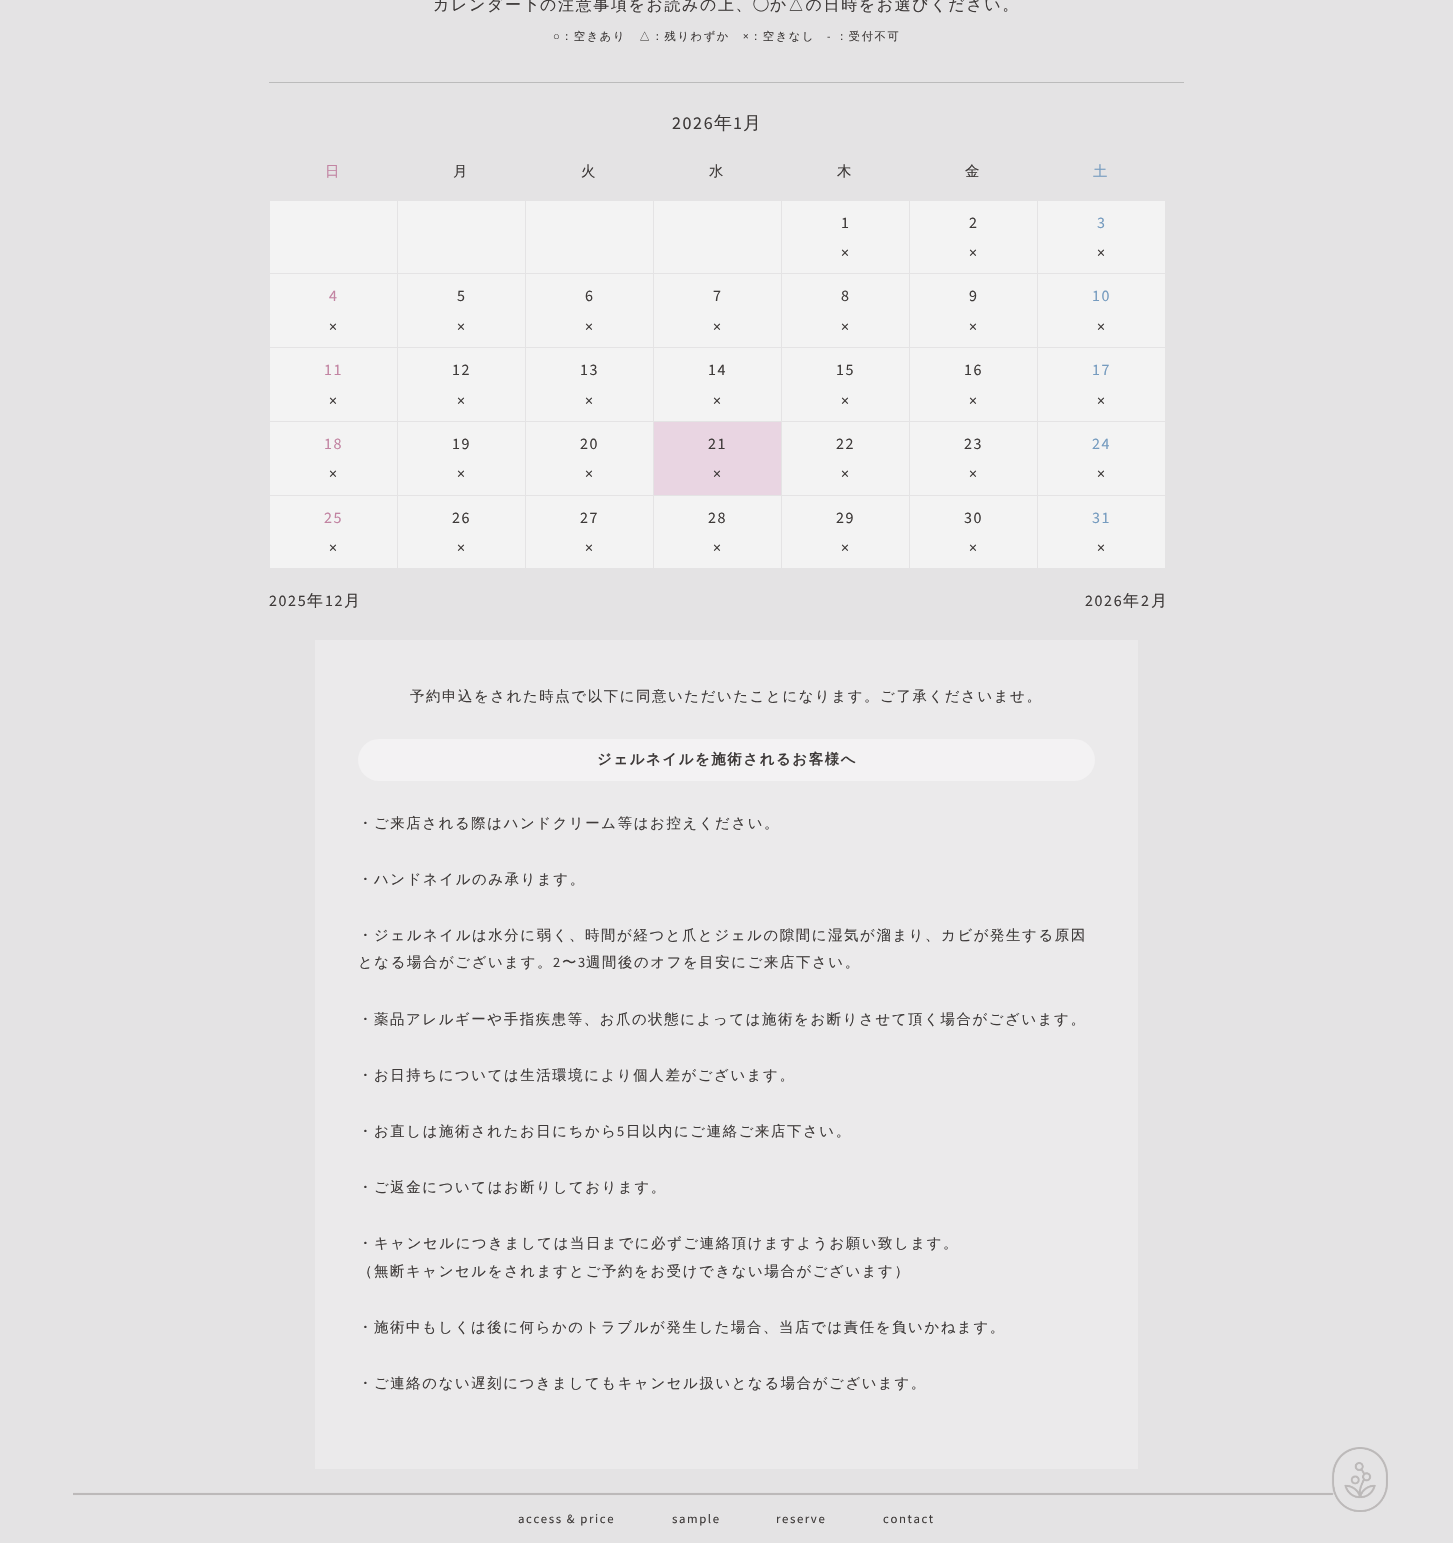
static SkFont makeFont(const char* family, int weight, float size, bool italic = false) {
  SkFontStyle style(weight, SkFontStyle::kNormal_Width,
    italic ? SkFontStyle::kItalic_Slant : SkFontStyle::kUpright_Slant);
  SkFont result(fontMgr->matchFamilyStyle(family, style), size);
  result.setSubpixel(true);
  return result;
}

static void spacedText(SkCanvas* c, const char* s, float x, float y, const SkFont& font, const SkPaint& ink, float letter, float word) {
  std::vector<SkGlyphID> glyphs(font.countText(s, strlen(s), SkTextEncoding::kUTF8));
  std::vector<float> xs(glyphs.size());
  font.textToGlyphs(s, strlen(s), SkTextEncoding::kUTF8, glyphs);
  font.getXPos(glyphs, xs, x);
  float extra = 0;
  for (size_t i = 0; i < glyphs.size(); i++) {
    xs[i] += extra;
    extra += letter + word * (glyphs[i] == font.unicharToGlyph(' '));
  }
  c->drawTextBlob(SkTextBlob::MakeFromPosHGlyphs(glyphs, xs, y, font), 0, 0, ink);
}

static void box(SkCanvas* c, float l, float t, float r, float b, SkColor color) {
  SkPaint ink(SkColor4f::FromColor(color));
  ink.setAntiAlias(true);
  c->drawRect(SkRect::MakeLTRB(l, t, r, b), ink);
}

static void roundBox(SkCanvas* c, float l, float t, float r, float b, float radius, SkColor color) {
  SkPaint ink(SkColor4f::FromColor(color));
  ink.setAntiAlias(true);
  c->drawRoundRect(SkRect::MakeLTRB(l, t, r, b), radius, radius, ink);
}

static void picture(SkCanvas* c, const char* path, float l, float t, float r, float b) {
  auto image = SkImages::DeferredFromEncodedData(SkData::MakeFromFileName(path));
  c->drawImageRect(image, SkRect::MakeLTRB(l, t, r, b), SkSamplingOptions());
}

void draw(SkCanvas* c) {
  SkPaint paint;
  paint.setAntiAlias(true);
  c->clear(0xffe4e3e4);
  SkFont face1 = makeFont("WenQuanYi Zen Hei", 500, 16);
  paint.setColor(0xff3e3a39);
  spacedText(c, "カレンダー下の注意事項をお読みの上、", 433, 10, face1, paint, 1.6f, 0);
  SkFont face2 = makeFont("IPAPGothic", 400, 16);
  spacedText(c, "◯", 753, 10, face2, paint, 1.6f, 0);
  spacedText(c, "か△の日時をお選びください。", 770, 10, face1, paint, 1.6f, 0);
  SkFont face3 = makeFont("Liberation Sans", 400, 11.25f);
  spacedText(c, "○", 553, 40, face3, paint, 1.6f, 0);
  SkFont face4 = makeFont("WenQuanYi Zen Hei", 500, 11.25f);
  spacedText(c, "：空きあり　△：残りわずか", 561, 40, face4, paint, 1.6f, 0);
  SkFont face5 = makeFont("Source Sans Pro", 400, 11.25f);
  spacedText(c, "×", 743, 40, face5, paint, 1.6f, 0);
  spacedText(c, "：空きなし", 750, 40, face4, paint, 1.6f, 0);
  spacedText(c, "-", 827, 40, face5, paint, 1.6f, 0);
  spacedText(c, "：受付不可", 836, 40, face4, paint, 1.6f, 0);
  box(c, 269, 82, 1184, 83, 0xffbbbbbb);
  SkFont face6 = makeFont("Source Sans Pro", 400, 18);
  spacedText(c, "2026", 672, 129, face6, paint, 1.6f, 0);
  SkFont face7 = makeFont("WenQuanYi Zen Hei", 500, 18);
  spacedText(c, "年", 714, 129, face7, paint, 1.6f, 0);
  spacedText(c, "1", 733, 129, face6, paint, 1.6f, 0);
  spacedText(c, "月", 743, 129, face7, paint, 1.6f, 0);
  SkFont face8 = makeFont("WenQuanYi Zen Hei", 500, 14.4f);
  paint.setColor(0xffc284a2);
  spacedText(c, "日", 325, 176, face8, paint, 1.6f, 0);
  paint.setColor(0xff3e3a39);
  spacedText(c, "月", 453, 176, face8, paint, 1.6f, 0);
  spacedText(c, "火", 581, 176, face8, paint, 1.6f, 0);
  spacedText(c, "水", 709, 176, face8, paint, 1.6f, 0);
  spacedText(c, "木", 837, 176, face8, paint, 1.6f, 0);
  spacedText(c, "金", 965, 176, face8, paint, 1.6f, 0);
  paint.setColor(0xff759bbf);
  spacedText(c, "土", 1093, 176, face8, paint, 1.6f, 0);
  box(c, 270, 201, 397, 273, 0xfff3f3f3);
  box(c, 398, 201, 525, 273, 0xfff3f3f3);
  box(c, 526, 201, 653, 273, 0xfff3f3f3);
  box(c, 654, 201, 781, 273, 0xfff3f3f3);
  box(c, 782, 201, 909, 273, 0xfff3f3f3);
  SkFont face9 = makeFont("Source Sans Pro", 400, 16);
  paint.setColor(0xff3e3a39);
  spacedText(c, "1", 841, 228, face9, paint, 1.6f, 0);
  spacedText(c, "×", 841, 258, face9, paint, 1.6f, 0);
  box(c, 910, 201, 1037, 273, 0xfff3f3f3);
  spacedText(c, "2", 969, 228, face9, paint, 1.6f, 0);
  spacedText(c, "×", 969, 258, face9, paint, 1.6f, 0);
  box(c, 1038, 201, 1165, 273, 0xfff3f3f3);
  paint.setColor(0xff759bbf);
  spacedText(c, "3", 1097, 228, face9, paint, 1.6f, 0);
  paint.setColor(0xff3e3a39);
  spacedText(c, "×", 1097, 258, face9, paint, 1.6f, 0);
  box(c, 270, 274, 397, 347, 0xfff3f3f3);
  paint.setColor(0xffc284a2);
  spacedText(c, "4", 329, 301, face9, paint, 1.6f, 0);
  paint.setColor(0xff3e3a39);
  spacedText(c, "×", 329, 332, face9, paint, 1.6f, 0);
  box(c, 398, 274, 525, 347, 0xfff3f3f3);
  spacedText(c, "5", 457, 301, face9, paint, 1.6f, 0);
  spacedText(c, "×", 457, 332, face9, paint, 1.6f, 0);
  box(c, 526, 274, 653, 347, 0xfff3f3f3);
  spacedText(c, "6", 585, 301, face9, paint, 1.6f, 0);
  spacedText(c, "×", 585, 332, face9, paint, 1.6f, 0);
  box(c, 654, 274, 781, 347, 0xfff3f3f3);
  spacedText(c, "7", 713, 301, face9, paint, 1.6f, 0);
  spacedText(c, "×", 713, 332, face9, paint, 1.6f, 0);
  box(c, 782, 274, 909, 347, 0xfff3f3f3);
  spacedText(c, "8", 841, 301, face9, paint, 1.6f, 0);
  spacedText(c, "×", 841, 332, face9, paint, 1.6f, 0);
  box(c, 910, 274, 1037, 347, 0xfff3f3f3);
  spacedText(c, "9", 969, 301, face9, paint, 1.6f, 0);
  spacedText(c, "×", 969, 332, face9, paint, 1.6f, 0);
  box(c, 1038, 274, 1165, 347, 0xfff3f3f3);
  paint.setColor(0xff759bbf);
  spacedText(c, "10", 1092, 301, face9, paint, 1.6f, 0);
  paint.setColor(0xff3e3a39);
  spacedText(c, "×", 1097, 332, face9, paint, 1.6f, 0);
  box(c, 270, 348, 397, 421, 0xfff3f3f3);
  paint.setColor(0xffc284a2);
  spacedText(c, "11", 324, 375, face9, paint, 1.6f, 0);
  paint.setColor(0xff3e3a39);
  spacedText(c, "×", 329, 406, face9, paint, 1.6f, 0);
  box(c, 398, 348, 525, 421, 0xfff3f3f3);
  spacedText(c, "12", 452, 375, face9, paint, 1.6f, 0);
  spacedText(c, "×", 457, 406, face9, paint, 1.6f, 0);
  box(c, 526, 348, 653, 421, 0xfff3f3f3);
  spacedText(c, "13", 580, 375, face9, paint, 1.6f, 0);
  spacedText(c, "×", 585, 406, face9, paint, 1.6f, 0);
  box(c, 654, 348, 781, 421, 0xfff3f3f3);
  spacedText(c, "14", 708, 375, face9, paint, 1.6f, 0);
  spacedText(c, "×", 713, 406, face9, paint, 1.6f, 0);
  box(c, 782, 348, 909, 421, 0xfff3f3f3);
  spacedText(c, "15", 836, 375, face9, paint, 1.6f, 0);
  spacedText(c, "×", 841, 406, face9, paint, 1.6f, 0);
  box(c, 910, 348, 1037, 421, 0xfff3f3f3);
  spacedText(c, "16", 964, 375, face9, paint, 1.6f, 0);
  spacedText(c, "×", 969, 406, face9, paint, 1.6f, 0);
  box(c, 1038, 348, 1165, 421, 0xfff3f3f3);
  paint.setColor(0xff759bbf);
  spacedText(c, "17", 1092, 375, face9, paint, 1.6f, 0);
  paint.setColor(0xff3e3a39);
  spacedText(c, "×", 1097, 406, face9, paint, 1.6f, 0);
  box(c, 270, 422, 397, 495, 0xfff3f3f3);
  paint.setColor(0xffc284a2);
  spacedText(c, "18", 324, 449, face9, paint, 1.6f, 0);
  paint.setColor(0xff3e3a39);
  spacedText(c, "×", 329, 479, face9, paint, 1.6f, 0);
  box(c, 398, 422, 525, 495, 0xfff3f3f3);
  spacedText(c, "19", 452, 449, face9, paint, 1.6f, 0);
  spacedText(c, "×", 457, 479, face9, paint, 1.6f, 0);
  box(c, 526, 422, 653, 495, 0xfff3f3f3);
  spacedText(c, "20", 580, 449, face9, paint, 1.6f, 0);
  spacedText(c, "×", 585, 479, face9, paint, 1.6f, 0);
  box(c, 654, 422, 781, 495, 0xffe9d5e2);
  spacedText(c, "21", 708, 449, face9, paint, 1.6f, 0);
  spacedText(c, "×", 713, 479, face9, paint, 1.6f, 0);
  box(c, 782, 422, 909, 495, 0xfff3f3f3);
  spacedText(c, "22", 836, 449, face9, paint, 1.6f, 0);
  spacedText(c, "×", 841, 479, face9, paint, 1.6f, 0);
  box(c, 910, 422, 1037, 495, 0xfff3f3f3);
  spacedText(c, "23", 964, 449, face9, paint, 1.6f, 0);
  spacedText(c, "×", 969, 479, face9, paint, 1.6f, 0);
  box(c, 1038, 422, 1165, 495, 0xfff3f3f3);
  paint.setColor(0xff759bbf);
  spacedText(c, "24", 1092, 449, face9, paint, 1.6f, 0);
  paint.setColor(0xff3e3a39);
  spacedText(c, "×", 1097, 479, face9, paint, 1.6f, 0);
  box(c, 270, 496, 397, 568, 0xfff3f3f3);
  paint.setColor(0xffc284a2);
  spacedText(c, "25", 324, 523, face9, paint, 1.6f, 0);
  paint.setColor(0xff3e3a39);
  spacedText(c, "×", 329, 553, face9, paint, 1.6f, 0);
  box(c, 398, 496, 525, 568, 0xfff3f3f3);
  spacedText(c, "26", 452, 523, face9, paint, 1.6f, 0);
  spacedText(c, "×", 457, 553, face9, paint, 1.6f, 0);
  box(c, 526, 496, 653, 568, 0xfff3f3f3);
  spacedText(c, "27", 580, 523, face9, paint, 1.6f, 0);
  spacedText(c, "×", 585, 553, face9, paint, 1.6f, 0);
  box(c, 654, 496, 781, 568, 0xfff3f3f3);
  spacedText(c, "28", 708, 523, face9, paint, 1.6f, 0);
  spacedText(c, "×", 713, 553, face9, paint, 1.6f, 0);
  box(c, 782, 496, 909, 568, 0xfff3f3f3);
  spacedText(c, "29", 836, 523, face9, paint, 1.6f, 0);
  spacedText(c, "×", 841, 553, face9, paint, 1.6f, 0);
  box(c, 910, 496, 1037, 568, 0xfff3f3f3);
  spacedText(c, "30", 964, 523, face9, paint, 1.6f, 0);
  spacedText(c, "×", 969, 553, face9, paint, 1.6f, 0);
  box(c, 1038, 496, 1165, 568, 0xfff3f3f3);
  paint.setColor(0xff759bbf);
  spacedText(c, "31", 1092, 523, face9, paint, 1.6f, 0);
  paint.setColor(0xff3e3a39);
  spacedText(c, "×", 1097, 553, face9, paint, 1.6f, 0);
  spacedText(c, "2025", 269, 606, face9, paint, 1.6f, 0);
  spacedText(c, "年", 307, 606, face1, paint, 1.6f, 0);
  spacedText(c, "12", 325, 606, face9, paint, 1.6f, 0);
  spacedText(c, "月", 344, 606, face1, paint, 1.6f, 0);
  spacedText(c, "2026", 1085, 606, face9, paint, 1.6f, 0);
  spacedText(c, "年", 1123, 606, face1, paint, 1.6f, 0);
  spacedText(c, "2", 1141, 606, face9, paint, 1.6f, 0);
  spacedText(c, "月", 1151, 606, face1, paint, 1.6f, 0);
  box(c, 315, 640, 1138, 1469, 0xffebeaeb);
  spacedText(c, "予約申込をされた時点で以下に同意いただいたことになります。ご了承くださいませ。", 410, 701, face8, paint, 1.6f, 0);
  roundBox(c, 358, 739, 1095, 781, 21, 0xfff3f2f3);
  SkFont face10 = makeFont("WenQuanYi Zen Hei", 700, 14.4f);
  spacedText(c, "ジェルネイルを施術されるお客様へ", 597, 764, face10, paint, 1.6f, 0);
  spacedText(c, "・ご来店される際はハンドクリーム等はお控えください。", 358, 828, face8, paint, 1.6f, 0);
  spacedText(c, "・ハンドネイルのみ承ります。", 358, 884, face8, paint, 1.6f, 0);
  spacedText(c, "・ジェルネイルは水分に弱く、時間が経つと爪とジェルの隙間に湿気が溜まり、カビが発生する原因", 358, 940, face8, paint, 1.6f, 0);
  spacedText(c, "となる場合がございます。", 358, 967, face8, paint, 1.6f, 0);
  SkFont face11 = makeFont("Source Sans Pro", 400, 14.4f);
  spacedText(c, "2", 553, 967, face11, paint, 1.6f, 0);
  spacedText(c, "〜", 562, 967, face8, paint, 1.6f, 0);
  spacedText(c, "3", 578, 967, face11, paint, 1.6f, 0);
  spacedText(c, "週間後のオフを目安にご来店下さい。", 586, 967, face8, paint, 1.6f, 0);
  spacedText(c, "・薬品アレルギーや手指疾患等、お爪の状態によっては施術をお断りさせて頂く場合がございます。", 358, 1024, face8, paint, 1.6f, 0);
  spacedText(c, "・お日持ちについては生活環境により個人差がございます。", 358, 1080, face8, paint, 1.6f, 0);
  spacedText(c, "・お直しは施術されたお日にちから", 358, 1136, face8, paint, 1.6f, 0);
  spacedText(c, "5", 617, 1136, face11, paint, 1.6f, 0);
  spacedText(c, "日以内にご連絡ご来店下さい。", 626, 1136, face8, paint, 1.6f, 0);
  spacedText(c, "・ご返金についてはお断りしております。", 358, 1192, face8, paint, 1.6f, 0);
  spacedText(c, "・キャンセルにつきましては当日までに必ずご連絡頂けますようお願い致します。", 358, 1248, face8, paint, 1.6f, 0);
  spacedText(c, "（無断キャンセルをされますとご予約をお受けできない場合がございます）", 358, 1276, face8, paint, 1.6f, 0);
  spacedText(c, "・施術中もしくは後に何らかのトラブルが発生した場合、当店では責任を負いかねます。", 358, 1332, face8, paint, 1.6f, 0);
  spacedText(c, "・ご連絡のない遅刻につきましてもキャンセル扱いとなる場合がございます。", 358, 1388, face8, paint, 1.6f, 0);
  picture(c, "img_01.png", 73, 1447, 1388, 1512);
  SkFont face12 = makeFont("Source Sans Pro", 400, 12.75f);
  spacedText(c, "access & price", 518, 1523, face12, paint, 1.6f, 0);
  spacedText(c, "sample", 672, 1523, face12, paint, 1.6f, 0);
  spacedText(c, "reserve", 776, 1523, face12, paint, 1.6f, 0);
  spacedText(c, "contact", 883, 1523, face12, paint, 1.6f, 0);
}
